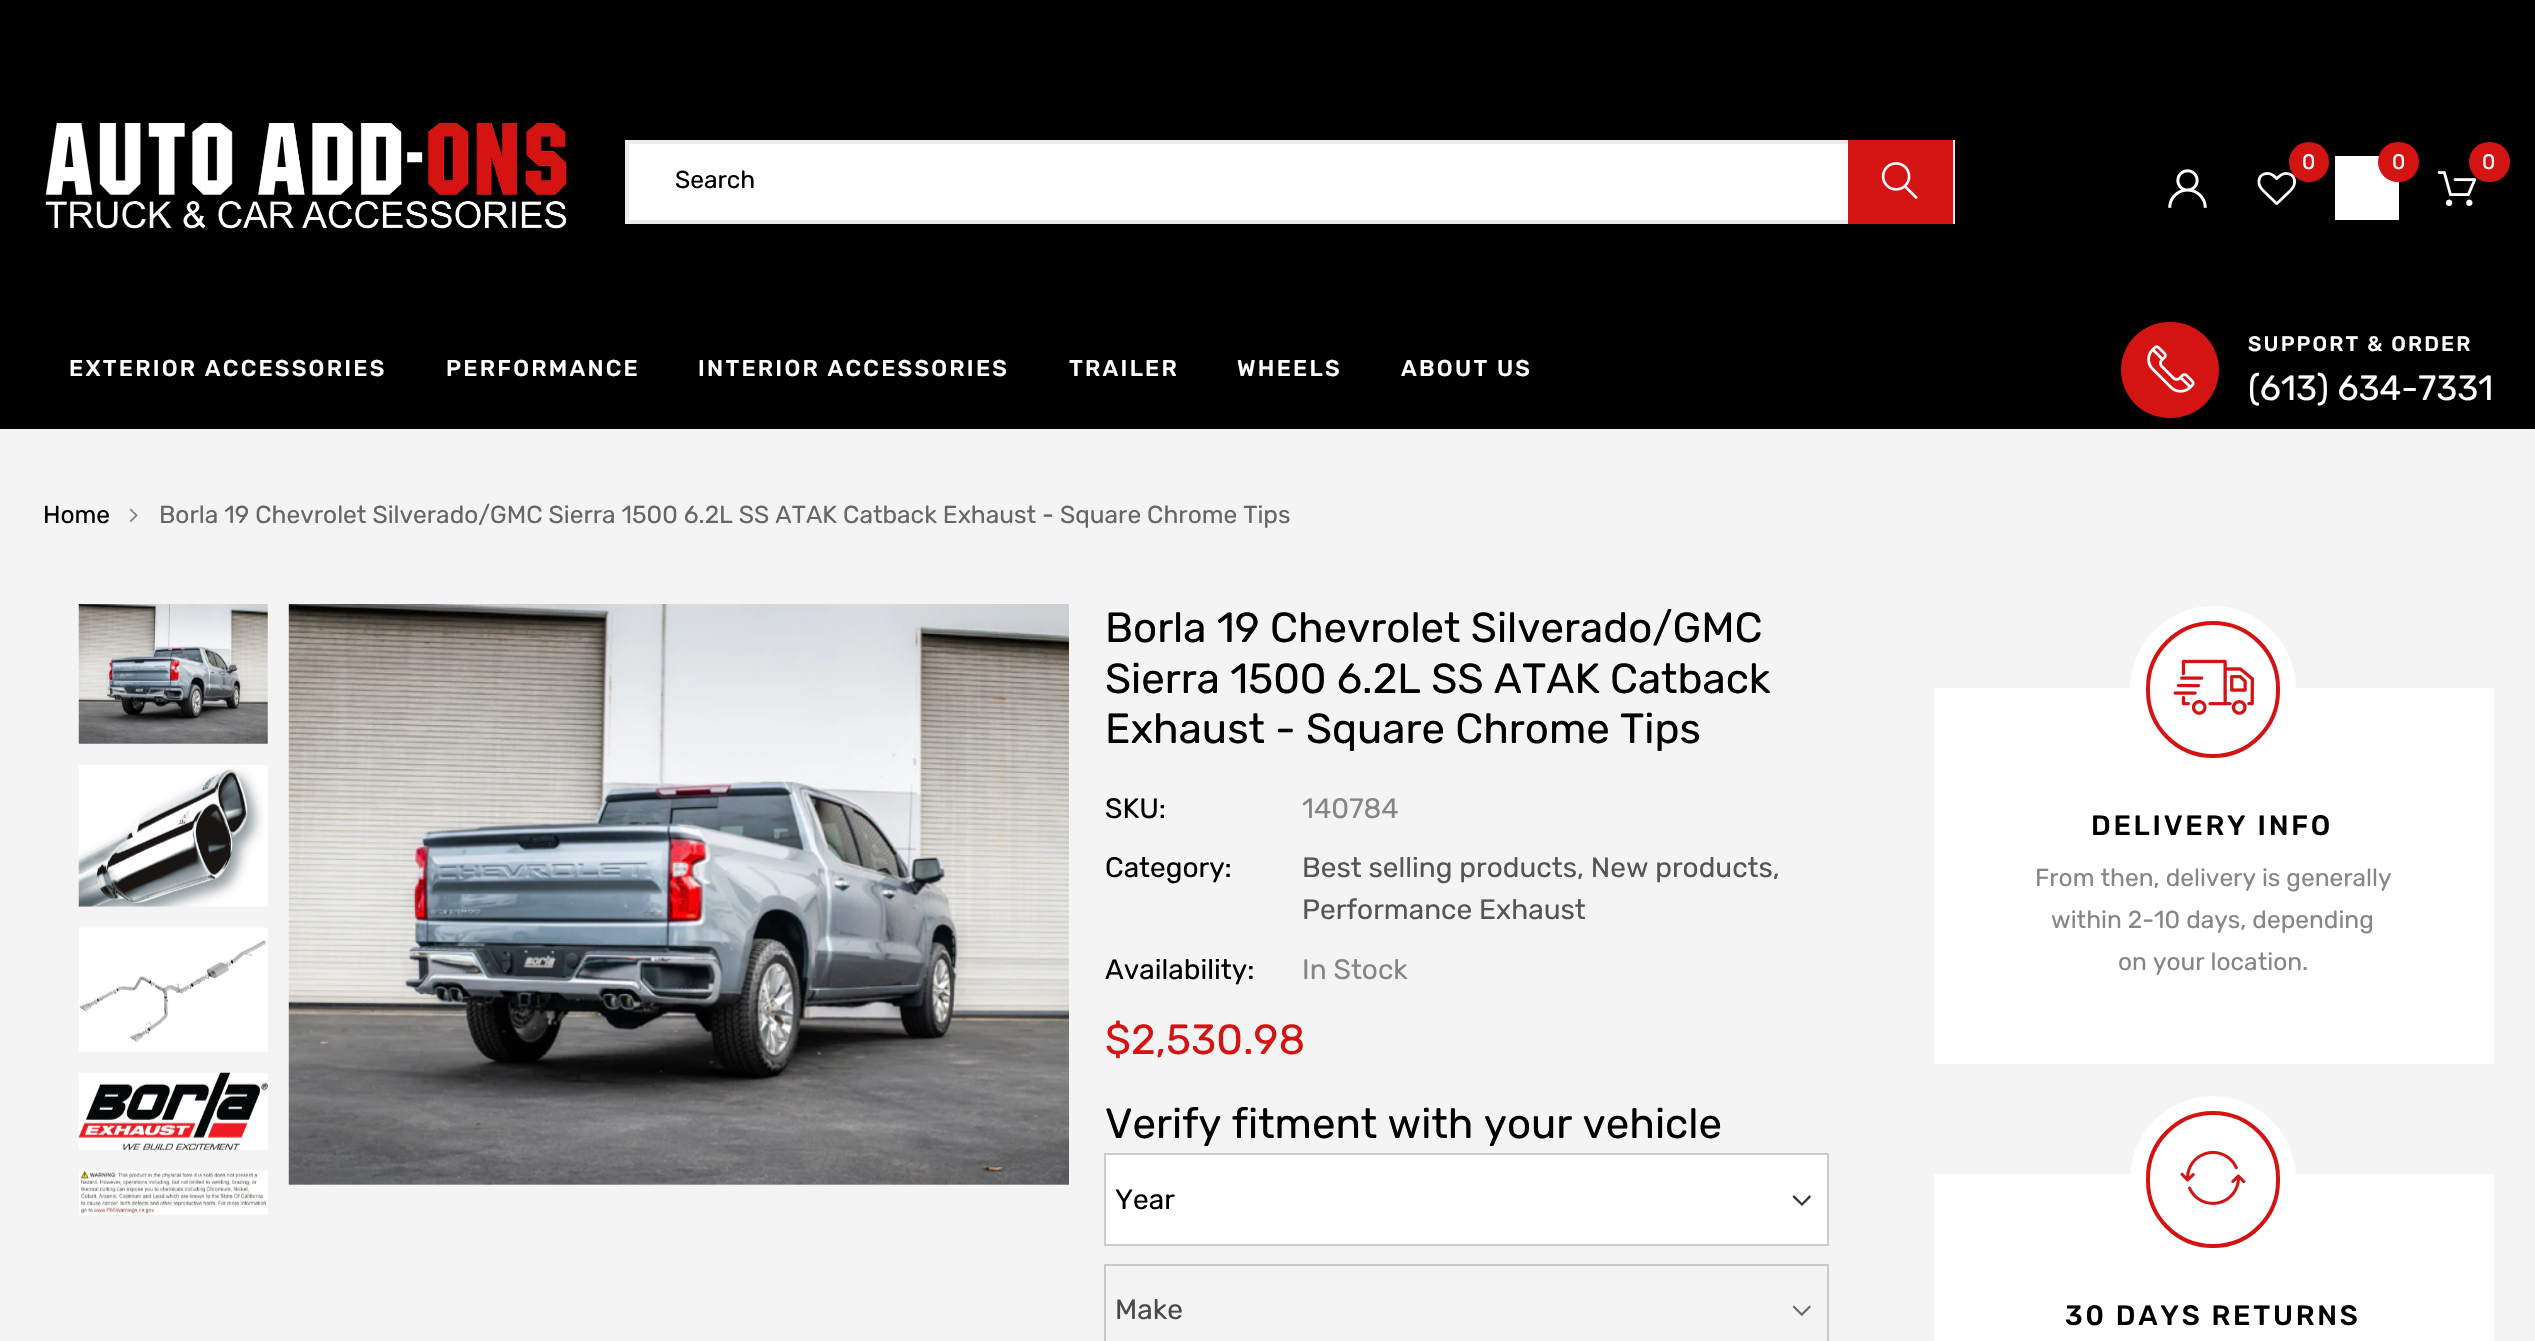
static SkFont makeFont(const char* family, int weight, float size, bool italic = false) {
  SkFontStyle style(weight, SkFontStyle::kNormal_Width,
    italic ? SkFontStyle::kItalic_Slant : SkFontStyle::kUpright_Slant);
  SkFont result(fontMgr->matchFamilyStyle(family, style), size);
  result.setSubpixel(true);
  return result;
}

static void text(SkCanvas* c, const char* s, float x, float y, const SkFont& font, SkColor color) {
  SkPaint ink(SkColor4f::FromColor(color));
  ink.setAntiAlias(true);
  c->drawString(s, x, y, font, ink);
}

static void spacedText(SkCanvas* c, const char* s, float x, float y, const SkFont& font, const SkPaint& ink, float letter, float word) {
  std::vector<SkGlyphID> glyphs(font.countText(s, strlen(s), SkTextEncoding::kUTF8));
  std::vector<float> xs(glyphs.size());
  font.textToGlyphs(s, strlen(s), SkTextEncoding::kUTF8, glyphs);
  font.getXPos(glyphs, xs, x);
  float extra = 0;
  for (size_t i = 0; i < glyphs.size(); i++) {
    xs[i] += extra;
    extra += letter + word * (glyphs[i] == font.unicharToGlyph(' '));
  }
  c->drawTextBlob(SkTextBlob::MakeFromPosHGlyphs(glyphs, xs, y, font), 0, 0, ink);
}

static void box(SkCanvas* c, float l, float t, float r, float b, SkColor color) {
  SkPaint ink(SkColor4f::FromColor(color));
  ink.setAntiAlias(true);
  c->drawRect(SkRect::MakeLTRB(l, t, r, b), ink);
}

static void roundBox(SkCanvas* c, float l, float t, float r, float b, float radius, SkColor color) {
  SkPaint ink(SkColor4f::FromColor(color));
  ink.setAntiAlias(true);
  c->drawRoundRect(SkRect::MakeLTRB(l, t, r, b), radius, radius, ink);
}

static void picture(SkCanvas* c, const char* path, float l, float t, float r, float b) {
  auto image = SkImages::DeferredFromEncodedData(SkData::MakeFromFileName(path));
  c->drawImageRect(image, SkRect::MakeLTRB(l, t, r, b), SkSamplingOptions());
}

void draw(SkCanvas* c) {
  SkPaint paint;
  paint.setAntiAlias(true);
  c->clear(0xff000000);
  picture(c, "img_01.png", 45, 122, 567, 229);
  picture(c, "img_02.png", 2257, 172, 2296, 205);
  paint.setColor(0xffd41313);
  c->drawCircle(2309, 162, 20, paint);
  SkFont face1 = makeFont("Rubik", 400, 21);
  text(c, "0", 2302, 169, face1, 0xffffffff);
  box(c, 2335, 156, 2399, 220, 0xffffffff);
  roundBox(c, 2378, 142, 2419, 182, 20, 0xffd41313);
  text(c, "0", 2392, 169, face1, 0xffffffff);
  picture(c, "img_03.png", 2437, 171, 2477, 206);
  roundBox(c, 2469, 142, 2510, 182, 20, 0xffd41313);
  text(c, "0", 2482, 169, face1, 0xffffffff);
  picture(c, "img_04.png", 2168, 169, 2207, 208);
  box(c, 629, 144, 1848, 220, 0xffffffff);
  paint.setStyle(SkPaint::kStroke_Style);
  paint.setStrokeWidth(4);
  paint.setColor(0xffececec);
  c->drawRect(SkRect::MakeLTRB(627, 142, 1953, 222), paint);
  SkFont face2 = makeFont("Rubik", 400, 24.5f);
  text(c, "Search", 675, 188, face2, 0xff000000);
  box(c, 1848, 140, 1953, 224, 0xffd41313);
  picture(c, "img_05.png", 1881, 162, 1918, 199);
  SkFont face3 = makeFont("Rubik", 500, 22.75f);
  paint.setStyle(SkPaint::kFill_Style);
  paint.setColor(0xffffffff);
  spacedText(c, "EXTERIOR ACCESSORIES", 69, 376, face3, paint, 2.25f, 0);
  spacedText(c, "PERFORMANCE", 446, 376, face3, paint, 2.25f, 0);
  spacedText(c, "INTERIOR ACCESSORIES", 698, 376, face3, paint, 2.25f, 0);
  spacedText(c, "TRAILER", 1069, 376, face3, paint, 2.25f, 0);
  spacedText(c, "WHEELS", 1237, 376, face3, paint, 2.25f, 0);
  spacedText(c, "ABOUT US", 1401, 376, face3, paint, 2.25f, 0);
  roundBox(c, 2121, 322, 2219, 418, 48, 0xffd41313);
  picture(c, "img_06.png", 2147, 345, 2195, 393);
  SkFont face4 = makeFont("Rubik", 500, 21);
  spacedText(c, "SUPPORT & ORDER", 2248, 351, face4, paint, 2.1f, 0);
  SkFont face5 = makeFont("Rubik", 400, 35);
  text(c, "(613) 634-7331", 2248, 400, face5, 0xffffffff);
  box(c, 0, 429, 2535, 1341, 0xfff4f4f4);
  text(c, "Home", 43, 523, face2, 0xff000000);
  picture(c, "img_07.png", 129, 508, 138, 523);
  text(c, "Borla 19 Chevrolet Silverado/GMC Sierra 1500 6.2L SS ATAK Catback Exhaust - Square Chrome Tips", 159, 523, face2, 0xff666666);
  picture(c, "img_08.png", 78, 604, 268, 744);
  picture(c, "img_09.png", 78, 765, 268, 907);
  picture(c, "img_10.png", 79, 927, 268, 1052);
  picture(c, "img_11.png", 78, 1072, 268, 1150);
  picture(c, "img_12.png", 79, 1170, 268, 1215);
  picture(c, "img_13.png", 288, 604, 1069, 1185);
  SkFont face6 = makeFont("Rubik", 400, 42);
  text(c, "Borla 19 Chevrolet Silverado/GMC", 1105, 642, face6, 0xff000000);
  text(c, "Sierra 1500 6.2L SS ATAK Catback", 1105, 693, face6, 0xff000000);
  text(c, "Exhaust - Square Chrome Tips", 1105, 743, face6, 0xff000000);
  SkFont face7 = makeFont("Rubik", 400, 28);
  text(c, "SKU:", 1105, 818, face7, 0xff000000);
  text(c, "140784", 1302, 818, face7, 0xff868686);
  text(c, "Category:", 1105, 877, face7, 0xff000000);
  text(c, "Best selling products, New products,", 1302, 877, face7, 0xff555555);
  text(c, "Performance Exhaust", 1302, 919, face7, 0xff555555);
  text(c, "Availability:", 1105, 979, face7, 0xff000000);
  text(c, "In Stock", 1302, 979, face7, 0xff868686);
  text(c, "$2,530.98", 1105, 1054, face6, 0xffd41313);
  text(c, "Verify fitment with your vehicle", 1105, 1138, face6, 0xff000000);
  box(c, 1106, 1155, 1827, 1244, 0xffffffff);
  paint.setColor(0xff333333);
  c->drawPath(SkPathBuilder(SkPathFillType::kEvenOdd).moveTo(1802, 1206).lineTo(1811, 1197).lineTo(1809.5f, 1195).lineTo(1802, 1203).lineTo(1794, 1195).lineTo(1792.5f, 1197).close().detach(), paint);
  paint.setStyle(SkPaint::kStroke_Style);
  paint.setStrokeWidth(2);
  paint.setColor(0xffcccccc);
  c->drawRect(SkRect::MakeLTRB(1105, 1154, 1828, 1245), paint);
  text(c, "Year", 1115, 1209, face7, 0xff000000);
  picture(c, "img_14.png", 1792, 1305, 1811, 1317);
  paint.setColor(0xffc9c9c9);
  c->drawRect(SkRect::MakeLTRB(1105, 1265, 1828, 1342), paint);
  text(c, "Make", 1115, 1319, face7, 0xff494949);
  box(c, 1934, 688, 2494, 1064, 0xffffffff);
  paint.setStyle(SkPaint::kFill_Style);
  paint.setColor(0xffffffff);
  c->drawCircle(2213, 689, 83, paint);
  paint.setStyle(SkPaint::kStroke_Style);
  paint.setStrokeWidth(4);
  paint.setColor(0xffd41313);
  c->drawRoundRect(SkRect::MakeLTRB(2148, 623, 2278, 756), 65, 65, paint);
  picture(c, "img_15.png", 2173, 659, 2254, 715);
  SkFont face8 = makeFont("Rubik", 500, 28);
  paint.setStyle(SkPaint::kFill_Style);
  paint.setColor(0xff000000);
  spacedText(c, "DELIVERY INFO", 2091, 835, face8, paint, 2.75f, 0);
  text(c, "From then, delivery is generally", 2035, 886, face2, 0xff868686);
  text(c, "within 2-10 days, depending", 2051, 928, face2, 0xff868686);
  text(c, "on your location.", 2118, 970, face2, 0xff868686);
  box(c, 1934, 1174, 2494, 1341, 0xffffffff);
  paint.setColor(0xffffffff);
  c->drawCircle(2213, 1179, 83, paint);
  paint.setStyle(SkPaint::kStroke_Style);
  paint.setColor(0xffd41313);
  c->drawRoundRect(SkRect::MakeLTRB(2148, 1113, 2278, 1246), 65, 65, paint);
  picture(c, "img_16.png", 2180, 1150, 2246, 1205);
  paint.setStyle(SkPaint::kFill_Style);
  paint.setColor(0xff000000);
  spacedText(c, "30 DAYS RETURNS", 2065, 1325, face8, paint, 2.75f, 0);
}
